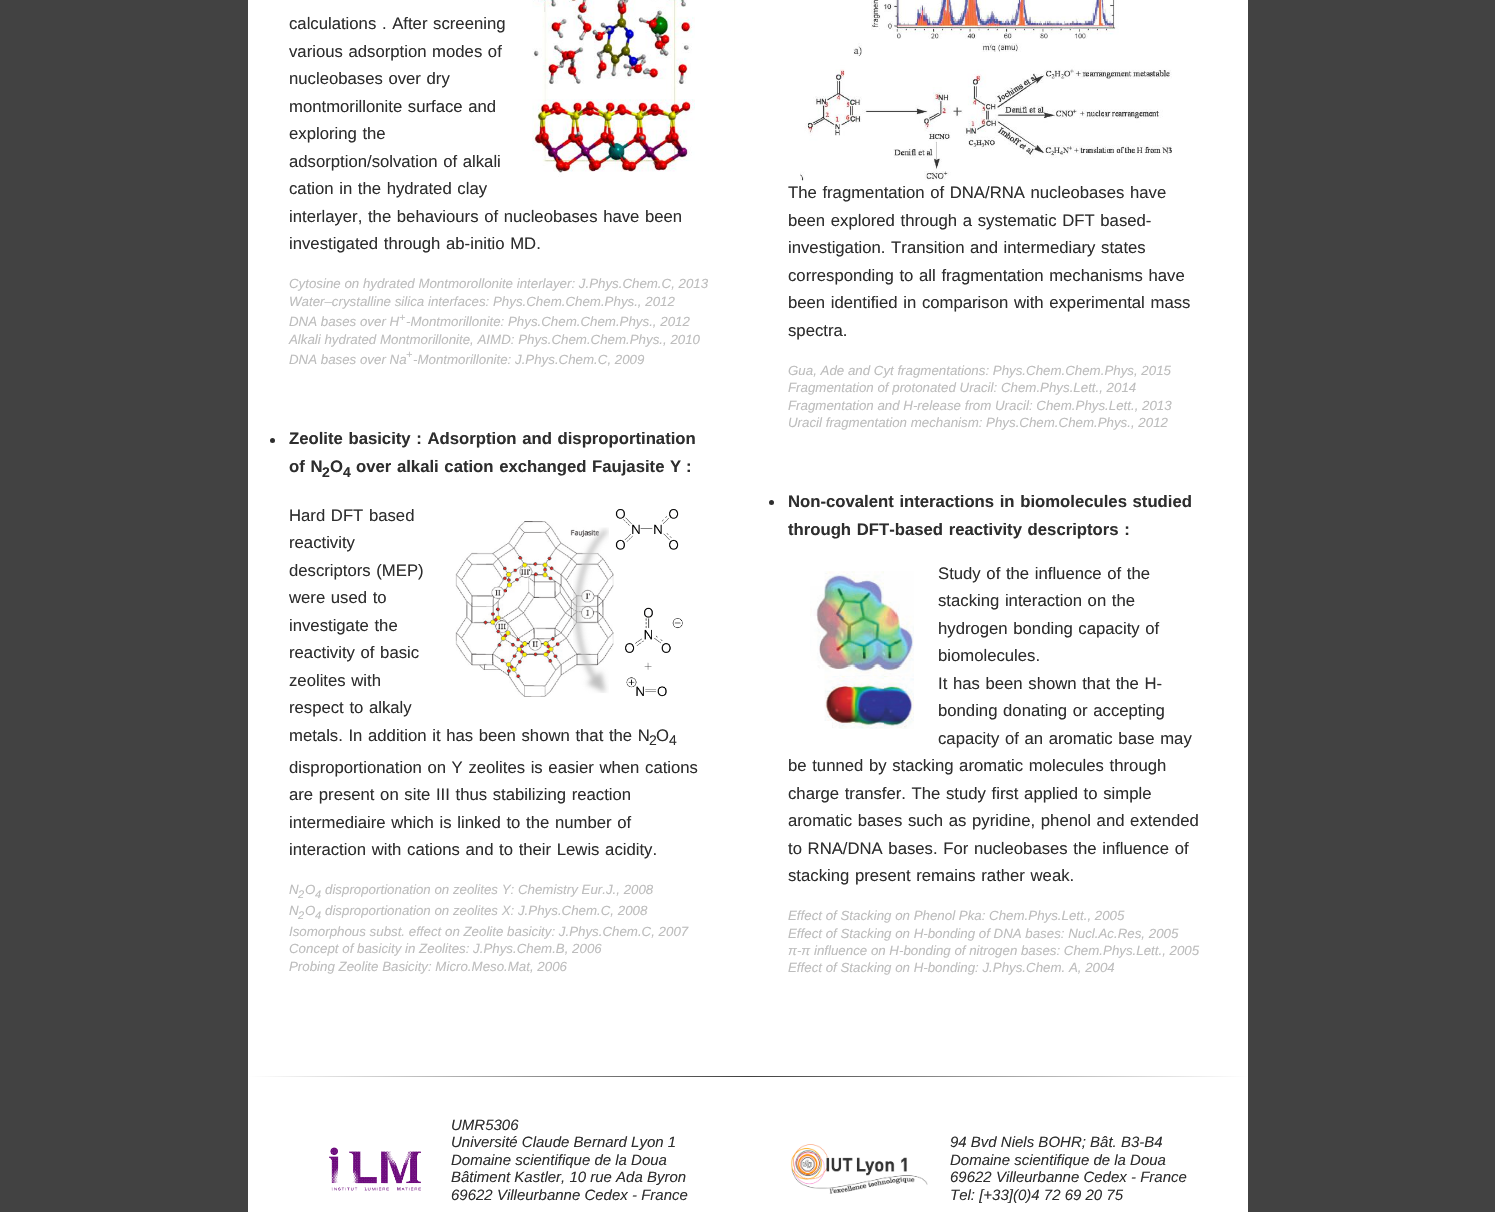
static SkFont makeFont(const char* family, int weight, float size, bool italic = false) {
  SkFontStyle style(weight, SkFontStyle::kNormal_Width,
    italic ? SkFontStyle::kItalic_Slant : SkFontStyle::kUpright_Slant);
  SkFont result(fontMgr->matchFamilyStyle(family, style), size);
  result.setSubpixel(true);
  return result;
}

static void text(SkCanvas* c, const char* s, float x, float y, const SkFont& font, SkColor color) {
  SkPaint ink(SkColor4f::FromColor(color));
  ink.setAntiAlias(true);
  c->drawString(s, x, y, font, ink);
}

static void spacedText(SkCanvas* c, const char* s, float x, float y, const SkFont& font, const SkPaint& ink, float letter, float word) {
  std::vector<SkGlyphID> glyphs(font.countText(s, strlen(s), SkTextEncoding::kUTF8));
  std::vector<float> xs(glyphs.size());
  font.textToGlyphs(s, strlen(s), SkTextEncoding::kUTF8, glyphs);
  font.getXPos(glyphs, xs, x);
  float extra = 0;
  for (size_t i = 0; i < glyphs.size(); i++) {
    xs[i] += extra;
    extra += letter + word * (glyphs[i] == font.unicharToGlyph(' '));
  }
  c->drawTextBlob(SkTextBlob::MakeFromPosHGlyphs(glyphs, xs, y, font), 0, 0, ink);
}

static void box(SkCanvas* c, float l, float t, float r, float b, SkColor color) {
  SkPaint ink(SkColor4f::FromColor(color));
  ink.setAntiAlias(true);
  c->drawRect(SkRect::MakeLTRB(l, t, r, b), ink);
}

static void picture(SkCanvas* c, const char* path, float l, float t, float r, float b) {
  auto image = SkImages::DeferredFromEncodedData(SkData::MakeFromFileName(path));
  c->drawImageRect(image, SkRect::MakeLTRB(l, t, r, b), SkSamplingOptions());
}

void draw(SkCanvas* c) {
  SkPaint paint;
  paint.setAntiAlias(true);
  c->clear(0xff424242);
  box(c, 248, 0, 1248, 1212, 0xffffffff);
  SkFont face1 = makeFont("Liberation Sans", 400, 16.7f);
  paint.setColor(0xff2e2e2e);
  spacedText(c, "calculations . After screening", 289, 29, face1, paint, 0, 1);
  picture(c, "img_01.png", 532, 0, 695, 177);
  spacedText(c, "various adsorption modes of", 289, 57, face1, paint, 0, 1);
  spacedText(c, "nucleobases over dry", 289, 84, face1, paint, 0, 1);
  spacedText(c, "montmorillonite surface and", 289, 112, face1, paint, 0, 1);
  spacedText(c, "exploring the", 289, 139, face1, paint, 0, 1);
  spacedText(c, "adsorption/solvation of alkali", 289, 167, face1, paint, 0, 1);
  spacedText(c, "cation in the hydrated clay", 289, 194, face1, paint, 0, 1);
  spacedText(c, "interlayer, the behaviours of nucleobases have been", 289, 222, face1, paint, 0, 1);
  spacedText(c, "investigated through ab-initio MD.", 289, 249, face1, paint, 0, 1);
  SkFont face2 = makeFont("Liberation Sans", 400, 13.3f, true);
  text(c, "Cytosine on hydrated Montmorollonite interlayer: J.Phys.Chem.C, 2013", 289, 288, face2, 0xffbdbdbd);
  text(c, "Water–crystalline silica interfaces: Phys.Chem.Chem.Phys., 2012", 289, 306, face2, 0xffbdbdbd);
  text(c, "DNA bases over H", 289, 326, face2, 0xffbdbdbd);
  SkFont face3 = makeFont("Liberation Sans", 400, 11, true);
  text(c, "+", 399, 321, face3, 0xffbdbdbd);
  text(c, "-Montmorillonite: Phys.Chem.Chem.Phys., 2012", 406, 326, face2, 0xffbdbdbd);
  text(c, "Alkali hydrated Montmorillonite, AIMD: Phys.Chem.Chem.Phys., 2010", 289, 344, face2, 0xffbdbdbd);
  text(c, "DNA bases over Na", 289, 364, face2, 0xffbdbdbd);
  text(c, "+", 406, 358, face3, 0xffbdbdbd);
  text(c, "-Montmorillonite: J.Phys.Chem.C, 2009", 413, 364, face2, 0xffbdbdbd);
  c->drawCircle(272.5f, 440.5f, 2.5f, paint);
  SkFont face4 = makeFont("Liberation Sans", 700, 16.7f);
  spacedText(c, "Zeolite basicity : Adsorption and disproportination", 289, 444, face4, paint, 0, 1);
  spacedText(c, "of N", 289, 472, face4, paint, 0, 1);
  SkFont face5 = makeFont("Liberation Sans", 700, 14);
  text(c, "2", 322, 477, face5, 0xff2e2e2e);
  text(c, "O", 330, 472, face4, 0xff2e2e2e);
  text(c, "4", 343, 477, face5, 0xff2e2e2e);
  spacedText(c, "over alkali cation exchanged Faujasite Y", 356, 472, face4, paint, 0, 1);
  text(c, ":", 686, 472, face4, 0xff2e2e2e);
  spacedText(c, "Hard DFT based", 289, 521, face1, paint, 0, 1);
  picture(c, "img_02.png", 455, 509, 683, 697);
  text(c, "reactivity", 289, 548, face1, 0xff2e2e2e);
  spacedText(c, "descriptors (MEP)", 289, 576, face1, paint, 0, 1);
  spacedText(c, "were used to", 289, 603, face1, paint, 0, 1);
  spacedText(c, "investigate the", 289, 631, face1, paint, 0, 1);
  spacedText(c, "reactivity of basic", 289, 658, face1, paint, 0, 1);
  spacedText(c, "zeolites with", 289, 686, face1, paint, 0, 1);
  spacedText(c, "respect to alkaly", 289, 713, face1, paint, 0, 1);
  spacedText(c, "metals. In addition it has been shown that the N", 289, 741, face1, paint, 0, 1);
  SkFont face6 = makeFont("Liberation Sans", 400, 14);
  text(c, "2", 649, 745, face6, 0xff2e2e2e);
  text(c, "O", 656, 741, face1, 0xff2e2e2e);
  text(c, "4", 669, 745, face6, 0xff2e2e2e);
  spacedText(c, "disproportionation on Y zeolites is easier when cations", 289, 773, face1, paint, 0, 1);
  spacedText(c, "are present on site III thus stabilizing reaction", 289, 800, face1, paint, 0, 1);
  spacedText(c, "intermediaire which is linked to the number of", 289, 828, face1, paint, 0, 1);
  spacedText(c, "interaction with cations and to their Lewis acidity.", 289, 855, face1, paint, 0, 1);
  text(c, "N", 289, 894, face2, 0xffbdbdbd);
  text(c, "2", 298, 898, face3, 0xffbdbdbd);
  text(c, "O", 305, 894, face2, 0xffbdbdbd);
  text(c, "4", 315, 898, face3, 0xffbdbdbd);
  text(c, "disproportionation on zeolites Y: Chemistry Eur.J., 2008", 325, 894, face2, 0xffbdbdbd);
  text(c, "N", 289, 915, face2, 0xffbdbdbd);
  text(c, "2", 298, 919, face3, 0xffbdbdbd);
  text(c, "O", 305, 915, face2, 0xffbdbdbd);
  text(c, "4", 315, 919, face3, 0xffbdbdbd);
  text(c, "disproportionation on zeolites X: J.Phys.Chem.C, 2008", 325, 915, face2, 0xffbdbdbd);
  text(c, "Isomorphous subst. effect on Zeolite basicity: J.Phys.Chem.C, 2007", 289, 936, face2, 0xffbdbdbd);
  text(c, "Concept of basicity in Zeolites: J.Phys.Chem.B, 2006", 289, 953, face2, 0xffbdbdbd);
  text(c, "Probing Zeolite Basicity: Micro.Meso.Mat, 2006", 289, 971, face2, 0xffbdbdbd);
  picture(c, "img_03.png", 800, 0, 1172, 181);
  spacedText(c, "The fragmentation of DNA/RNA nucleobases have", 788, 198, face1, paint, 0, 1);
  spacedText(c, "been explored through a systematic DFT based-", 788, 226, face1, paint, 0, 1);
  spacedText(c, "investigation. Transition and intermediary states", 788, 253, face1, paint, 0, 1);
  spacedText(c, "corresponding to all fragmentation mechanisms have", 788, 281, face1, paint, 0, 1);
  spacedText(c, "been identified in comparison with experimental mass", 788, 308, face1, paint, 0, 1);
  text(c, "spectra.", 788, 336, face1, 0xff2e2e2e);
  text(c, "Gua, Ade and Cyt fragmentations: Phys.Chem.Chem.Phys, 2015", 788, 375, face2, 0xffbdbdbd);
  text(c, "Fragmentation of protonated Uracil: Chem.Phys.Lett., 2014", 788, 392, face2, 0xffbdbdbd);
  text(c, "Fragmentation and H-release from Uracil: Chem.Phys.Lett., 2013", 788, 410, face2, 0xffbdbdbd);
  text(c, "Uracil fragmentation mechanism: Phys.Chem.Chem.Phys., 2012", 788, 427, face2, 0xffbdbdbd);
  c->drawCircle(771.5f, 502.5f, 2.5f, paint);
  spacedText(c, "Non-covalent interactions in biomolecules studied", 788, 507, face4, paint, 0, 1);
  spacedText(c, "through DFT-based reactivity descriptors :", 788, 535, face4, paint, 0, 1);
  picture(c, "img_04.png", 810, 571, 914, 729);
  spacedText(c, "Study of the influence of the", 938, 579, face1, paint, 0, 1);
  spacedText(c, "stacking interaction on the", 938, 606, face1, paint, 0, 1);
  spacedText(c, "hydrogen bonding capacity of", 938, 634, face1, paint, 0, 1);
  text(c, "biomolecules.", 938, 661, face1, 0xff2e2e2e);
  spacedText(c, "It has been shown that the H-", 938, 689, face1, paint, 0, 1);
  spacedText(c, "bonding donating or accepting", 938, 716, face1, paint, 0, 1);
  spacedText(c, "capacity of an aromatic base may", 938, 744, face1, paint, 0, 1);
  spacedText(c, "be tunned by stacking aromatic molecules through", 788, 771, face1, paint, 0, 1);
  spacedText(c, "charge transfer. The study first applied to simple", 788, 799, face1, paint, 0, 1);
  spacedText(c, "aromatic bases such as pyridine, phenol and extended", 788, 826, face1, paint, 0, 1);
  spacedText(c, "to RNA/DNA bases. For nucleobases the influence of", 788, 854, face1, paint, 0, 1);
  spacedText(c, "stacking present remains rather weak.", 788, 881, face1, paint, 0, 1);
  text(c, "Effect of Stacking on Phenol Pka: Chem.Phys.Lett., 2005", 788, 920, face2, 0xffbdbdbd);
  text(c, "Effect of Stacking on H-bonding of DNA bases: Nucl.Ac.Res, 2005", 788, 938, face2, 0xffbdbdbd);
  text(c, "π-π influence on H-bonding of nitrogen bases: Chem.Phys.Lett., 2005", 788, 955, face2, 0xffbdbdbd);
  text(c, "Effect of Stacking on H-bonding: J.Phys.Chem. A, 2004", 788, 972, face2, 0xffbdbdbd);
  {
    const SkColor colors[] = {0xffffffff, 0xff404040, 0xffffffff};
    const float stops[] = {0, 0.5f, 1};
    const SkPoint ends[] = {{248, 1077}, {1248, 1077}};
    paint.setShader(SkGradientShader::MakeLinear(ends, colors, stops, 3, SkTileMode::kClamp));
    paint.setAlpha(255);
  }
  c->drawRect(SkRect::MakeLTRB(248, 1076, 1248, 1077), paint);
  picture(c, "img_05.png", 329, 1147, 421, 1191);
  SkFont face7 = makeFont("Liberation Sans", 400, 15, true);
  text(c, "UMR5306", 451, 1130, face7, 0xff2e2e2e);
  text(c, "Université Claude Bernard Lyon 1", 451, 1147, face7, 0xff2e2e2e);
  text(c, "Domaine scientifique de la Doua", 451, 1165, face7, 0xff2e2e2e);
  text(c, "Bâtiment Kastler, 10 rue Ada Byron", 451, 1182, face7, 0xff2e2e2e);
  text(c, "69622 Villeurbanne Cedex - France", 451, 1200, face7, 0xff2e2e2e);
  picture(c, "img_06.png", 790, 1144, 928, 1194);
  text(c, "94 Bvd Niels BOHR; Bât. B3-B4", 950, 1147, face7, 0xff2e2e2e);
  text(c, "Domaine scientifique de la Doua", 950, 1165, face7, 0xff2e2e2e);
  text(c, "69622 Villeurbanne Cedex - France", 950, 1182, face7, 0xff2e2e2e);
  text(c, "Tel: [+33](0)4 72 69 20 75", 950, 1200, face7, 0xff2e2e2e);
}
